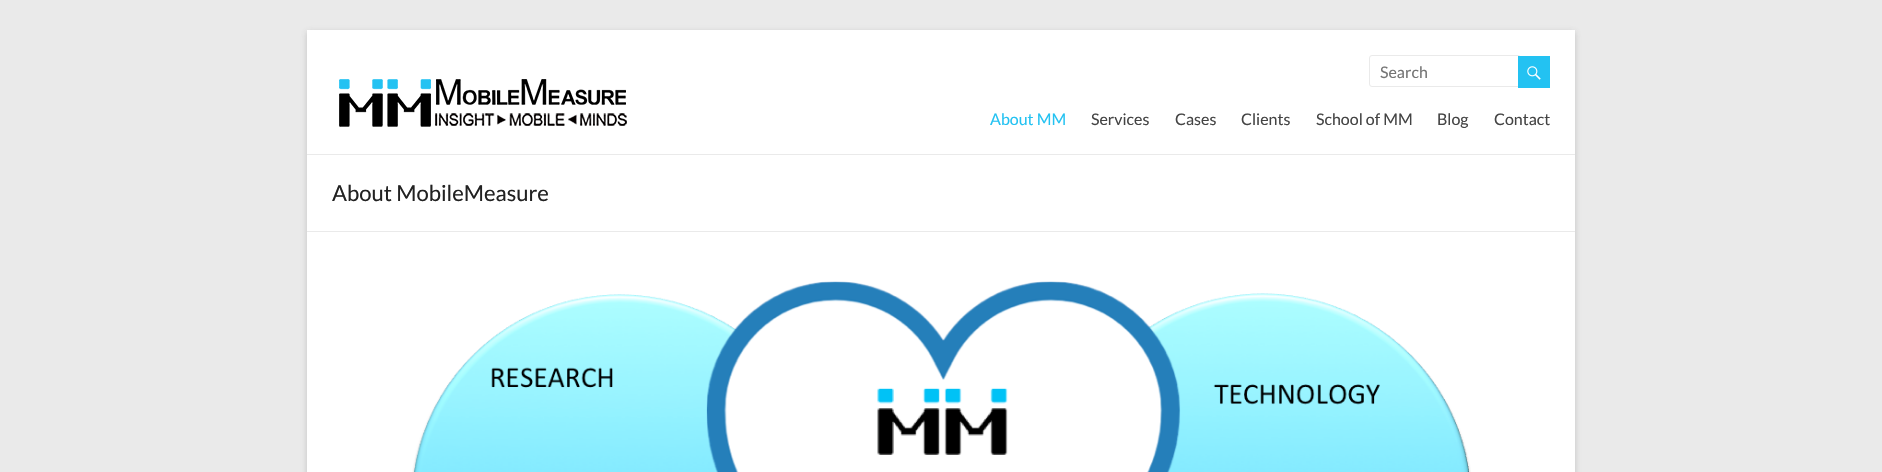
static SkFont makeFont(const char* family, int weight, float size, bool italic = false) {
  SkFontStyle style(weight, SkFontStyle::kNormal_Width,
    italic ? SkFontStyle::kItalic_Slant : SkFontStyle::kUpright_Slant);
  SkFont result(fontMgr->matchFamilyStyle(family, style), size);
  result.setSubpixel(true);
  return result;
}

static void text(SkCanvas* c, const char* s, float x, float y, const SkFont& font, SkColor color) {
  SkPaint ink(SkColor4f::FromColor(color));
  ink.setAntiAlias(true);
  c->drawString(s, x, y, font, ink);
}

static void box(SkCanvas* c, float l, float t, float r, float b, SkColor color) {
  SkPaint ink(SkColor4f::FromColor(color));
  ink.setAntiAlias(true);
  c->drawRect(SkRect::MakeLTRB(l, t, r, b), ink);
}

static void picture(SkCanvas* c, const char* path, float l, float t, float r, float b) {
  auto image = SkImages::DeferredFromEncodedData(SkData::MakeFromFileName(path));
  c->drawImageRect(image, SkRect::MakeLTRB(l, t, r, b), SkSamplingOptions());
}

void draw(SkCanvas* c) {
  SkPaint paint;
  paint.setAntiAlias(true);
  c->clear(0xffeaeaea);
  paint.setColor(0x4d646464);
  paint.setMaskFilter(SkMaskFilter::MakeBlur(kNormal_SkBlurStyle, 3));
  c->drawRect(SkRect::MakeLTRB(307, 32, 1575, 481), paint);
  paint.setMaskFilter(nullptr);
  box(c, 307, 30, 1575, 472, 0xffffffff);
  box(c, 307, 154, 1575, 155, 0xffeaeaea);
  picture(c, "img_01.png", 339, 79, 627, 127);
  paint.setStyle(SkPaint::kStroke_Style);
  paint.setStrokeWidth(1);
  paint.setColor(0xffeaeaea);
  c->drawRoundRect(SkRect::MakeLTRB(1369.5f, 55.5f, 1520.5f, 86.5f), 2.5f, 2.5f, paint);
  SkFont face1 = makeFont("Lato", 400, 16);
  text(c, "Search", 1380, 78, face1, 0xff757575);
  box(c, 1518, 56, 1550, 88, 0xff23c2f2);
  picture(c, "img_02.png", 1527, 66, 1541, 80);
  text(c, "About MM", 990, 125, face1, 0xff23c2f2);
  text(c, "Services", 1091, 125, face1, 0xff444444);
  text(c, "Cases", 1175, 125, face1, 0xff444444);
  text(c, "Clients", 1241, 125, face1, 0xff444444);
  text(c, "School of MM", 1316, 125, face1, 0xff444444);
  text(c, "Blog", 1437, 125, face1, 0xff444444);
  text(c, "Contact", 1494, 125, face1, 0xff444444);
  box(c, 307, 231, 1575, 232, 0xffeaeaea);
  SkFont face2 = makeFont("Lato", 400, 22);
  text(c, "About MobileMeasure", 332, 201, face2, 0xff222222);
  picture(c, "img_03.png", 412, 281, 1471, 472);
}
